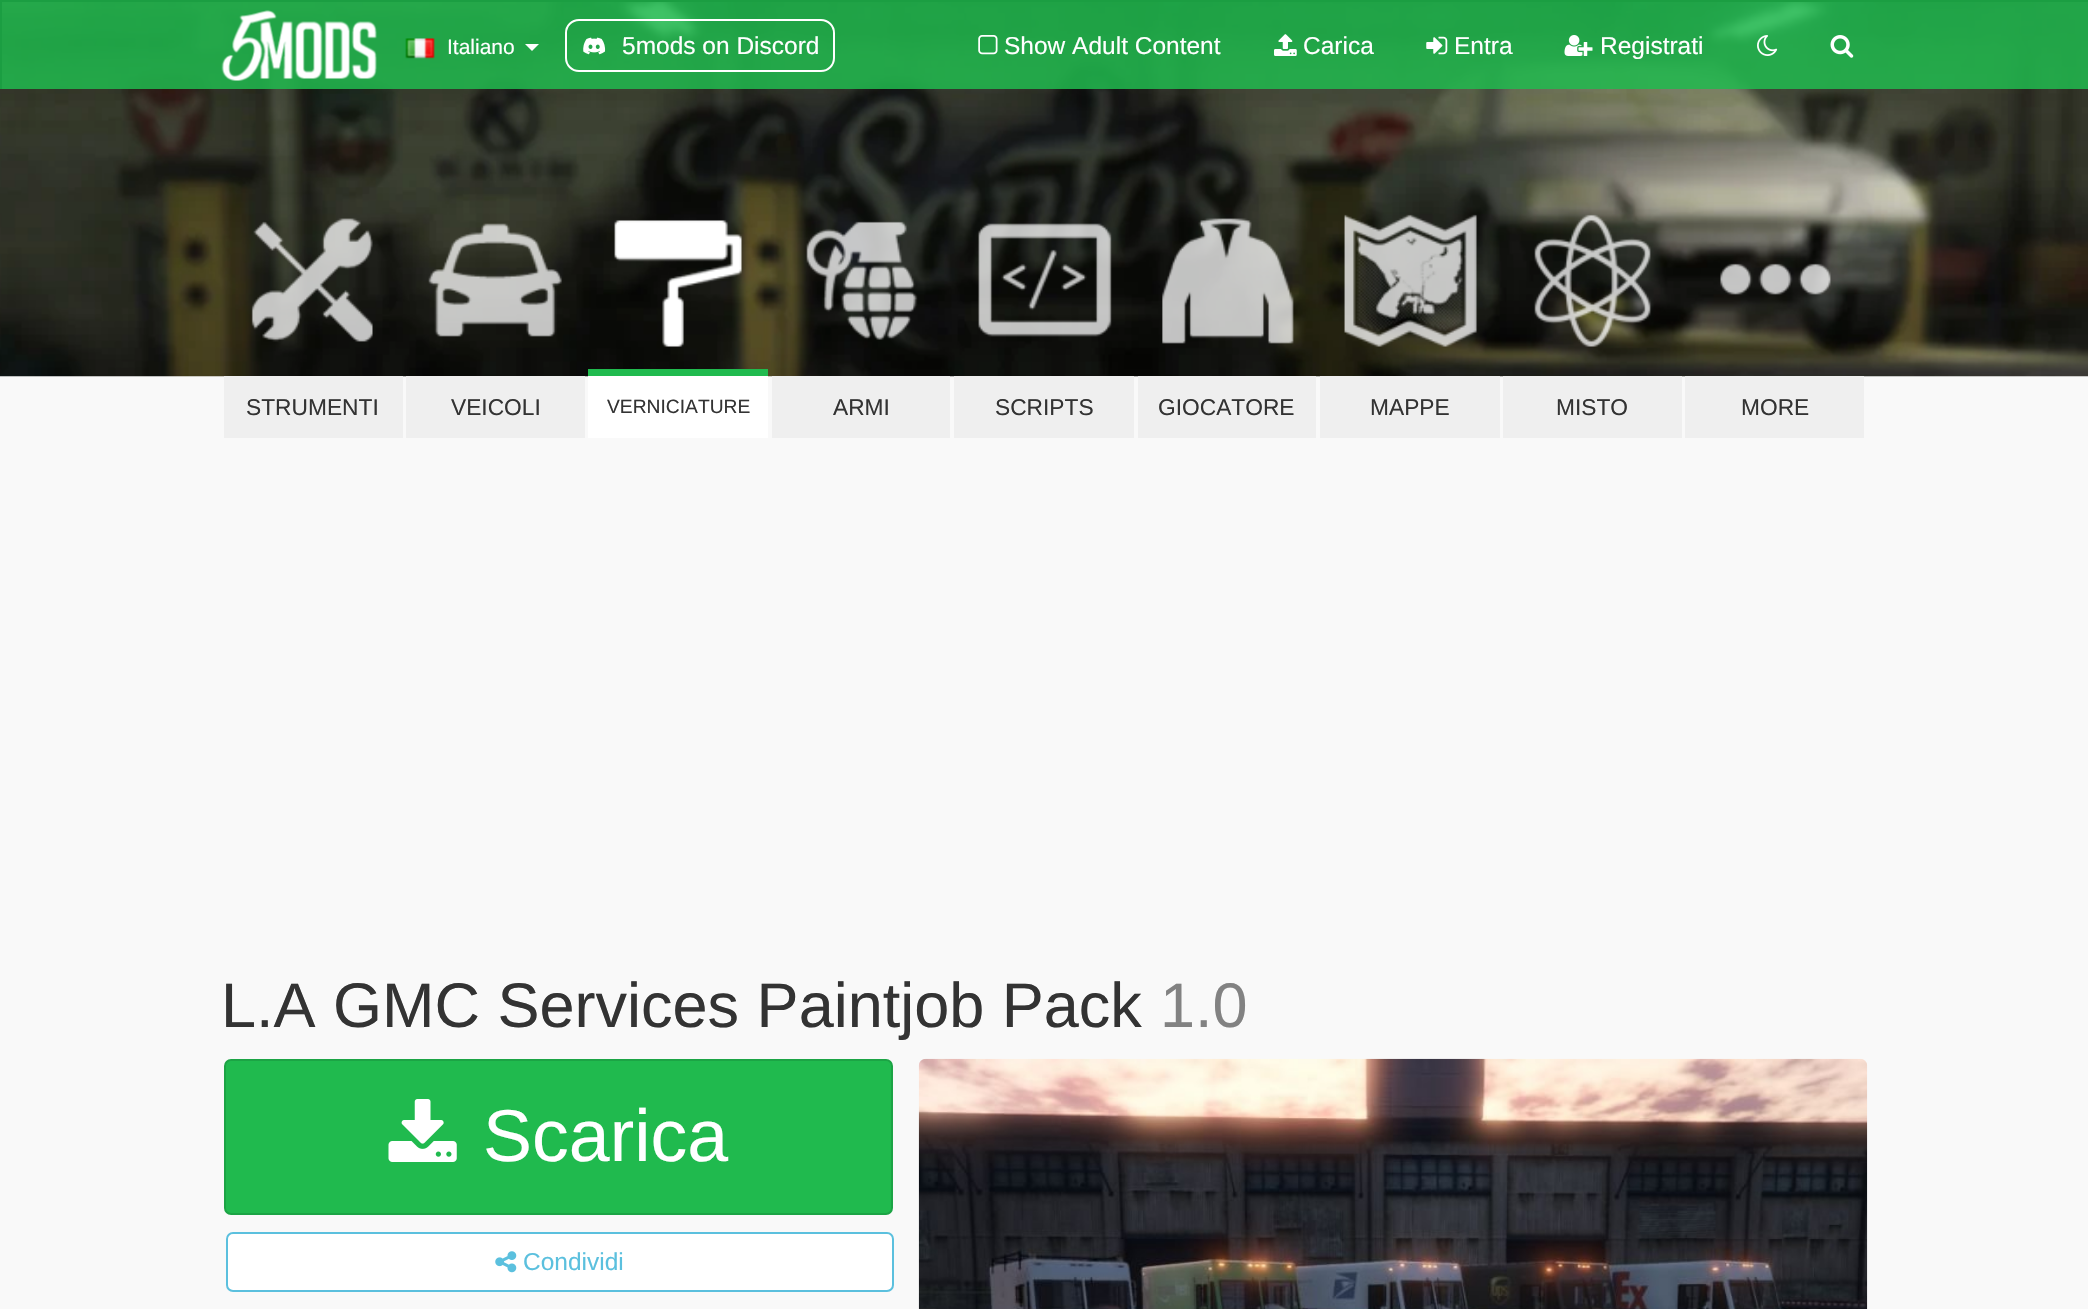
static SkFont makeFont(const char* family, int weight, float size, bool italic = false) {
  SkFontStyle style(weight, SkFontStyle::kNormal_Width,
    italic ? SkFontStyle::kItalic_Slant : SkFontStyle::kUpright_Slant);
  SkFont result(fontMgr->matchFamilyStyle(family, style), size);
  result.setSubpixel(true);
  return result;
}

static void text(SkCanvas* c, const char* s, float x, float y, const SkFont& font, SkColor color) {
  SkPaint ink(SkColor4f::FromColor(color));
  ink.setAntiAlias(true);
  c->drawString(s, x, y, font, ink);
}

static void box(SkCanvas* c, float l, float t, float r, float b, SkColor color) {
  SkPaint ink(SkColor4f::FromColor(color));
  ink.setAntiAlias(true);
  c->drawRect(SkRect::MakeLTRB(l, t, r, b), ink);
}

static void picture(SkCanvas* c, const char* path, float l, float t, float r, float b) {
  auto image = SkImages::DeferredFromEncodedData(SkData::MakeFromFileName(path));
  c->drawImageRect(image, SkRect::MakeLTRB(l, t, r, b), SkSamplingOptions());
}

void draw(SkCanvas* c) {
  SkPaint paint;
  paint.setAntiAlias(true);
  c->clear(0xfff9f9f9);
  picture(c, "img_10.png", 0, 2, 2088, 377);
  box(c, 2, 2, 2088, 89, 0xd920ba4e);
  box(c, 0, 0, 2088, 2, 0xff1b9e42);
  box(c, 0, 0, 2, 89, 0xff1b9e42);
  picture(c, "img_01.png", 221, 10, 377, 81);
  picture(c, "img_02.png", 405, 38, 435, 59);
  SkFont face1 = makeFont("Liberation Sans", 400, 21);
  text(c, "Italiano", 447, 54, face1, 0xffffffff);
  paint.setColor(0xffffffff);
  c->drawPath(SkPathBuilder().moveTo(525, 44).lineTo(539, 44).lineTo(532, 51).close().detach(), paint);
  paint.setStyle(SkPaint::kStroke_Style);
  paint.setStrokeWidth(2);
  c->drawRoundRect(SkRect::MakeLTRB(566, 20, 834, 71), 13, 13, paint);
  picture(c, "img_03.png", 583, 37, 606, 55);
  SkFont face2 = makeFont("Liberation Sans", 400, 24.5f);
  text(c, "5mods on Discord", 622, 54, face2, 0xffffffff);
  picture(c, "img_04.png", 978, 35, 998, 55);
  text(c, "Show Adult Content", 1004, 54, face2, 0xffffffff);
  picture(c, "img_05.png", 1274, 34, 1297, 56);
  text(c, "Carica", 1303, 54, face2, 0xffffffff);
  picture(c, "img_06.png", 1426, 36, 1448, 55);
  text(c, "Entra", 1454, 54, face2, 0xffffffff);
  picture(c, "img_07.png", 1564, 35, 1593, 56);
  text(c, "Registrati", 1600, 54, face2, 0xffffffff);
  picture(c, "img_08.png", 1757, 35, 1778, 56);
  picture(c, "img_09.png", 1830, 35, 1854, 58);
  picture(c, "img_11.png", 251, 218, 373, 342);
  box(c, 224, 376, 403, 438, 0xffefefef);
  SkFont face3 = makeFont("Liberation Sans", 400, 22.75f);
  text(c, "STRUMENTI", 246, 415, face3, 0xff333333);
  picture(c, "img_12.png", 428, 223, 562, 337);
  box(c, 406, 376, 585, 438, 0xffefefef);
  text(c, "VEICOLI", 451, 415, face3, 0xff333333);
  picture(c, "img_13.png", 614, 220, 742, 347);
  box(c, 588, 369, 768, 376, 0xff20ba4e);
  box(c, 588, 376, 768, 438, 0xffffffff);
  SkFont face4 = makeFont("Liberation Sans", 400, 19.25f);
  text(c, "VERNICIATURE", 607, 413, face4, 0xff333333);
  picture(c, "img_14.png", 806, 221, 918, 340);
  box(c, 772, 376, 950, 438, 0xffefefef);
  text(c, "ARMI", 833, 415, face3, 0xff333333);
  picture(c, "img_15.png", 978, 223, 1112, 337);
  box(c, 954, 376, 1134, 438, 0xffefefef);
  text(c, "SCRIPTS", 995, 415, face3, 0xff333333);
  picture(c, "img_16.png", 1162, 218, 1294, 344);
  box(c, 1138, 376, 1316, 438, 0xffefefef);
  text(c, "GIOCATORE", 1158, 415, face3, 0xff333333);
  picture(c, "img_17.png", 1344, 214, 1477, 347);
  box(c, 1320, 376, 1500, 438, 0xffefefef);
  text(c, "MAPPE", 1370, 415, face3, 0xff333333);
  picture(c, "img_18.png", 1534, 214, 1651, 347);
  box(c, 1503, 376, 1682, 438, 0xffefefef);
  text(c, "MISTO", 1556, 415, face3, 0xff333333);
  picture(c, "img_19.png", 1720, 263, 1831, 295);
  box(c, 1685, 376, 1864, 438, 0xffefefef);
  text(c, "MORE", 1741, 415, face3, 0xff333333);
  SkFont face5 = makeFont("Liberation Sans", 400, 63);
  text(c, "L.A GMC Services Paintjob Pack", 221, 1027, face5, 0xff333333);
  text(c, "1.0", 1160, 1027, face5, 0xff828282);
  paint.setStyle(SkPaint::kFill_Style);
  paint.setColor(0xff20ba4e);
  c->drawRoundRect(SkRect::MakeLTRB(225, 1060, 892, 1214), 6, 6, paint);
  paint.setStyle(SkPaint::kStroke_Style);
  paint.setColor(0xff1ca445);
  c->drawRoundRect(SkRect::MakeLTRB(225, 1060, 892, 1214), 6, 6, paint);
  picture(c, "img_20.png", 388, 1099, 457, 1162);
  SkFont face6 = makeFont("Liberation Sans", 400, 73.5f);
  text(c, "Scarica", 483, 1161, face6, 0xffffffff);
  paint.setStyle(SkPaint::kFill_Style);
  paint.setColor(0xffffffff);
  c->drawRoundRect(SkRect::MakeLTRB(227, 1233, 893, 1291), 6, 6, paint);
  paint.setStyle(SkPaint::kStroke_Style);
  paint.setColor(0xff5bc0de);
  c->drawRoundRect(SkRect::MakeLTRB(227, 1233, 893, 1291), 6, 6, paint);
  picture(c, "img_21.png", 495, 1251, 517, 1273);
  text(c, "Condividi", 523, 1270, face2, 0xff5bc0de);
  picture(c, "img_22.png", 918, 1058, 1868, 1309);
}
